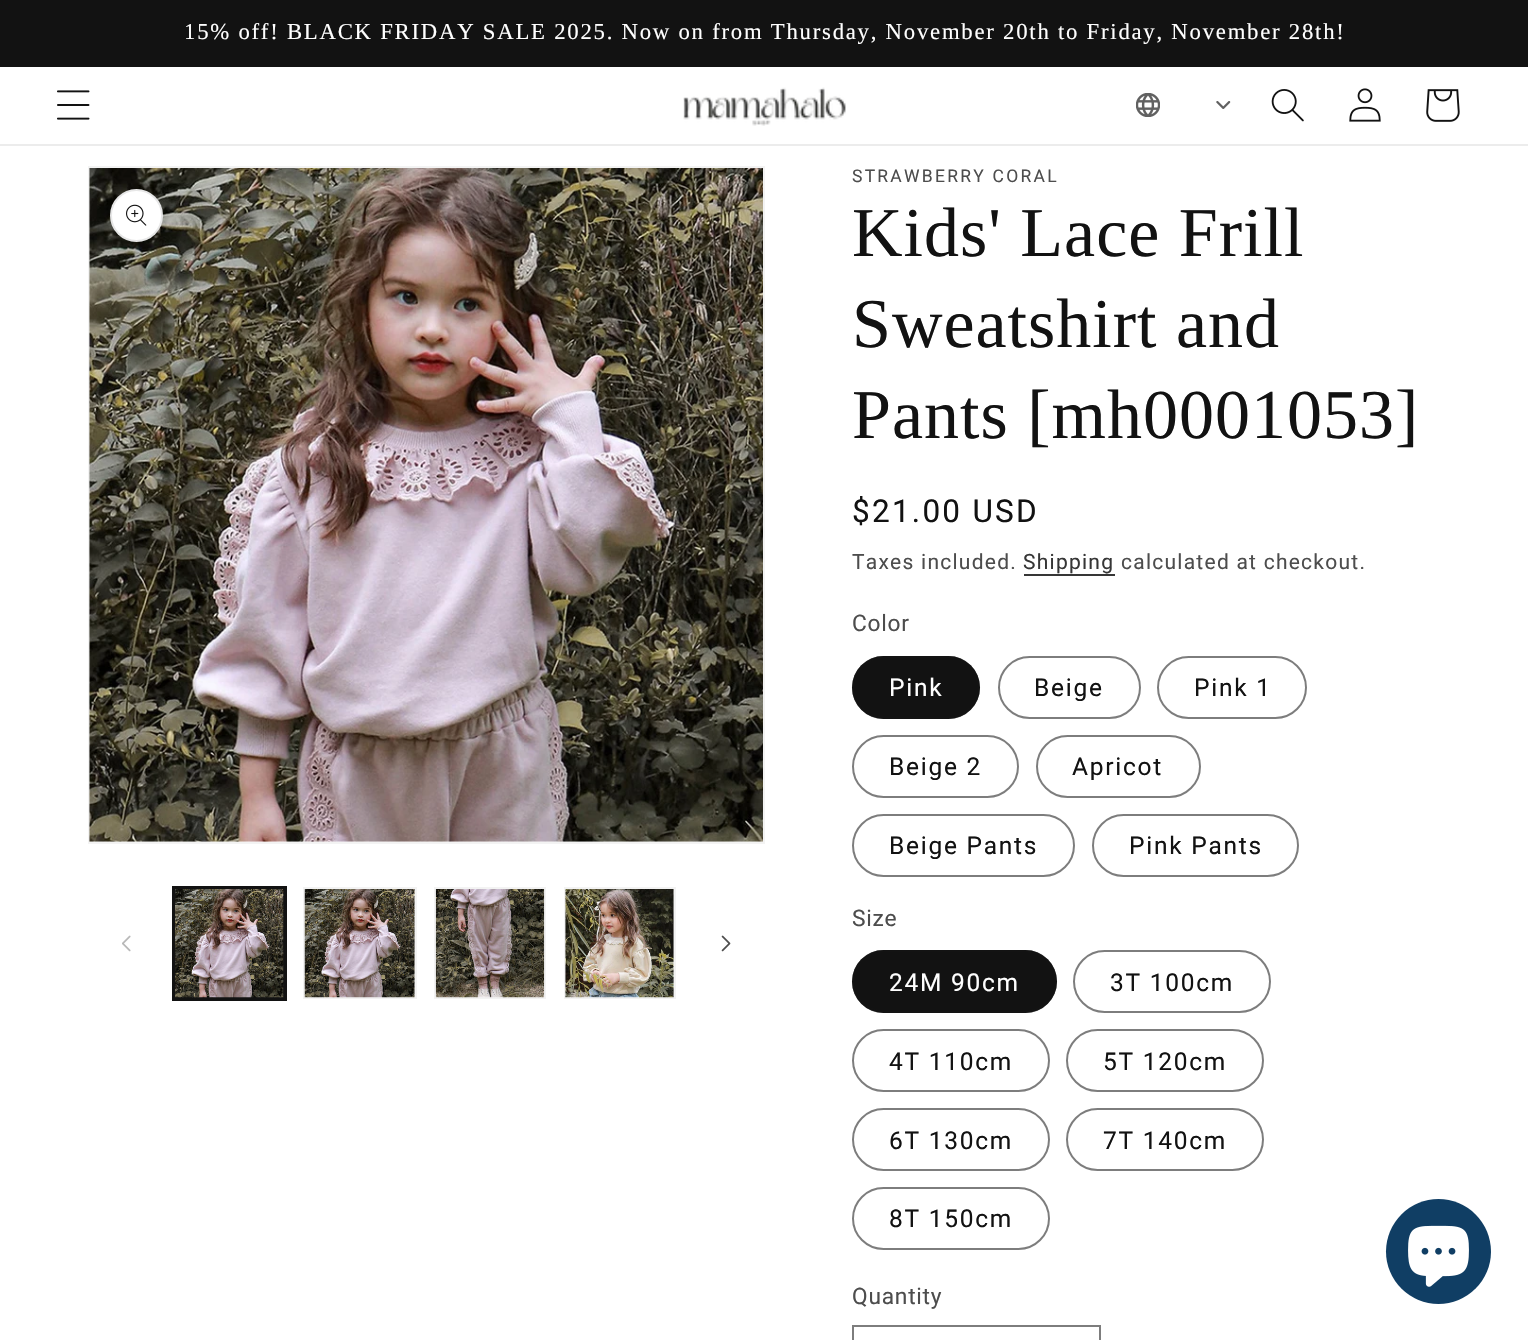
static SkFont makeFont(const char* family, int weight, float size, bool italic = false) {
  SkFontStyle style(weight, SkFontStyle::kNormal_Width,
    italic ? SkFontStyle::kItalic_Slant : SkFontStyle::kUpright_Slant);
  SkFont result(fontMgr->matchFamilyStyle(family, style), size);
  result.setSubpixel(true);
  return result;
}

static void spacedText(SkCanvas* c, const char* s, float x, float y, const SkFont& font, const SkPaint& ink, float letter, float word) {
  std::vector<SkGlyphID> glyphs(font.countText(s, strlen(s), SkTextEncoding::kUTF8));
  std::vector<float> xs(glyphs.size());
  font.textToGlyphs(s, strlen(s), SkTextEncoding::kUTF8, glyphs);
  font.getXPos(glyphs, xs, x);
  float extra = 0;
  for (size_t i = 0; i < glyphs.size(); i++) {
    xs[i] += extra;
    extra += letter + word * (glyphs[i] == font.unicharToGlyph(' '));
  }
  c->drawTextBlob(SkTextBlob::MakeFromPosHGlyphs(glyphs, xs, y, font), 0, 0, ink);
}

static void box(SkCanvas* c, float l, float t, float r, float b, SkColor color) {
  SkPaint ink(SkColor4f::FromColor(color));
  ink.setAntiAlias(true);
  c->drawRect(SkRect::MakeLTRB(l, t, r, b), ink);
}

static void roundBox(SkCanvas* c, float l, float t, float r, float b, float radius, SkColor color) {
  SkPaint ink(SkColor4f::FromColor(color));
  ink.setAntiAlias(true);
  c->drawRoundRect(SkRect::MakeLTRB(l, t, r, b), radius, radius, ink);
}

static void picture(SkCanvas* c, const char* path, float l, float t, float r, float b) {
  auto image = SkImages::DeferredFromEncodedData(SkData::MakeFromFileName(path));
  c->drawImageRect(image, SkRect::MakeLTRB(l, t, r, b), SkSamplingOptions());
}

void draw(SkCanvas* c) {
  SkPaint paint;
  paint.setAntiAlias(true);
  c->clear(0xffffffff);
  box(c, 0, 0, 1528, 67, 0xff121212);
  SkFont face1 = makeFont("Liberation Serif", 400, 22.75f);
  paint.setColor(0xffffffff);
  spacedText(c, "15% off! BLACK FRIDAY SALE 2025. Now on from Thursday, November 20th to Friday, November 28th!", 184, 39, face1, paint, 1.75f, 0);
  box(c, 0, 144, 1528, 146, 0xffececec);
  picture(c, "img_01.png", 57, 90, 90, 120);
  picture(c, "img_02.png", 683, 87, 846, 126);
  picture(c, "img_03.png", 1136, 93, 1160, 117);
  picture(c, "img_04.png", 1216, 101, 1231, 109);
  picture(c, "img_05.png", 1271, 89, 1304, 122);
  picture(c, "img_06.png", 1349, 88, 1381, 122);
  picture(c, "img_07.png", 1426, 89, 1460, 122);
  paint.setStyle(SkPaint::kStroke_Style);
  paint.setStrokeWidth(2);
  paint.setColor(0xfff3f3f3);
  c->drawRect(SkRect::MakeLTRB(89, 167, 764, 843), paint);
  picture(c, "img_08.png", 89, 168, 763, 842);
  paint.setStyle(SkPaint::kFill_Style);
  paint.setColor(0xffffffff);
  c->drawCircle(136.5f, 215.5f, 26.5f, paint);
  paint.setStyle(SkPaint::kStroke_Style);
  paint.setColor(0x1a121212);
  c->drawCircle(136.5f, 215.5f, 25.5f, paint);
  picture(c, "img_09.png", 126, 204, 147, 226);
  picture(c, "img_10.png", 122, 935, 131, 952);
  paint.setColor(0xff121212);
  c->drawRect(SkRect::MakeLTRB(173, 887, 286, 1000), paint);
  c->drawRect(SkRect::MakeLTRB(174, 888, 284, 998), paint);
  picture(c, "img_11.png", 175, 889, 284, 998);
  paint.setColor(0xfff3f3f3);
  c->drawRect(SkRect::MakeLTRB(304, 888, 416, 998), paint);
  picture(c, "img_12.png", 304, 889, 415, 998);
  c->drawRect(SkRect::MakeLTRB(435, 888, 545, 998), paint);
  picture(c, "img_13.png", 435, 889, 545, 998);
  c->drawRect(SkRect::MakeLTRB(565, 888, 675, 998), paint);
  picture(c, "img_14.png", 565, 889, 674, 998);
  picture(c, "img_15.png", 721, 935, 731, 952);
  SkFont face2 = makeFont("Roboto", 400, 17.5f);
  paint.setStyle(SkPaint::kFill_Style);
  paint.setColor(0xff4d4d4d);
  spacedText(c, "STRAWBERRY CORAL", 852, 182, face2, paint, 2.25f, 0);
  SkFont face3 = makeFont("Liberation Serif", 400, 70);
  paint.setColor(0xff121212);
  spacedText(c, "Kids' Lace Frill", 852, 256, face3, paint, 1, 0);
  spacedText(c, "Sweatshirt and", 852, 347, face3, paint, 1, 0);
  spacedText(c, "Pants [mh0001053]", 852, 438, face3, paint, 1, 0);
  SkFont face4 = makeFont("Roboto", 400, 31.5f);
  spacedText(c, "$21.00 USD", 852, 522, face4, paint, 2.25f, 0);
  SkFont face5 = makeFont("Roboto", 400, 21);
  paint.setColor(0xff4d4d4d);
  spacedText(c, "Taxes included.", 852, 569, face5, paint, 1.25f, 0);
  paint.setColor(0xff363636);
  spacedText(c, "Shipping", 1023, 569, face5, paint, 1.25f, 0);
  box(c, 1024, 574, 1115, 576, 0xff363636);
  paint.setColor(0xff4d4d4d);
  spacedText(c, "calculated at checkout.", 1121, 569, face5, paint, 1.25f, 0);
  SkFont face6 = makeFont("Roboto", 400, 22.75f);
  spacedText(c, "Color", 852, 631, face6, paint, 0.75f, 0);
  roundBox(c, 852, 656, 980, 719, 31.5f, 0xff121212);
  paint.setStyle(SkPaint::kStroke_Style);
  paint.setColor(0x8c121212);
  c->drawRoundRect(SkRect::MakeLTRB(853, 657, 979, 718), 30.5f, 30.5f, paint);
  SkFont face7 = makeFont("Roboto", 400, 24.5f);
  paint.setStyle(SkPaint::kFill_Style);
  paint.setColor(0xffffffff);
  spacedText(c, "Pink", 889, 696, face7, paint, 1.75f, 0);
  paint.setStyle(SkPaint::kStroke_Style);
  paint.setColor(0xff7d7d7d);
  c->drawRoundRect(SkRect::MakeLTRB(999, 657, 1140, 718), 30.5f, 30.5f, paint);
  paint.setStyle(SkPaint::kFill_Style);
  paint.setColor(0xff121212);
  spacedText(c, "Beige", 1034, 696, face7, paint, 1.75f, 0);
  paint.setStyle(SkPaint::kStroke_Style);
  paint.setColor(0xff7d7d7d);
  c->drawRoundRect(SkRect::MakeLTRB(1158, 657, 1306, 718), 30.5f, 30.5f, paint);
  paint.setStyle(SkPaint::kFill_Style);
  paint.setColor(0xff121212);
  spacedText(c, "Pink 1", 1194, 696, face7, paint, 1.75f, 0);
  paint.setStyle(SkPaint::kStroke_Style);
  paint.setColor(0xff7d7d7d);
  c->drawRoundRect(SkRect::MakeLTRB(853, 736, 1018, 797), 30.5f, 30.5f, paint);
  paint.setStyle(SkPaint::kFill_Style);
  paint.setColor(0xff121212);
  spacedText(c, "Beige 2", 889, 775, face7, paint, 1.75f, 0);
  paint.setStyle(SkPaint::kStroke_Style);
  paint.setColor(0xff7d7d7d);
  c->drawRoundRect(SkRect::MakeLTRB(1037, 736, 1200, 797), 30.5f, 30.5f, paint);
  paint.setStyle(SkPaint::kFill_Style);
  paint.setColor(0xff121212);
  spacedText(c, "Apricot", 1072, 775, face7, paint, 1.75f, 0);
  paint.setStyle(SkPaint::kStroke_Style);
  paint.setColor(0xff7d7d7d);
  c->drawRoundRect(SkRect::MakeLTRB(853, 815, 1074, 876), 30.5f, 30.5f, paint);
  paint.setStyle(SkPaint::kFill_Style);
  paint.setColor(0xff121212);
  spacedText(c, "Beige Pants", 889, 854, face7, paint, 1.75f, 0);
  paint.setStyle(SkPaint::kStroke_Style);
  paint.setColor(0xff7d7d7d);
  c->drawRoundRect(SkRect::MakeLTRB(1093, 815, 1298, 876), 30.5f, 30.5f, paint);
  paint.setStyle(SkPaint::kFill_Style);
  paint.setColor(0xff121212);
  spacedText(c, "Pink Pants", 1129, 854, face7, paint, 1.75f, 0);
  paint.setColor(0xff4d4d4d);
  spacedText(c, "Size", 852, 926, face6, paint, 0.75f, 0);
  roundBox(c, 852, 950, 1057, 1013, 31.5f, 0xff121212);
  paint.setStyle(SkPaint::kStroke_Style);
  paint.setColor(0x8c121212);
  c->drawRoundRect(SkRect::MakeLTRB(853, 951, 1056, 1012), 30.5f, 30.5f, paint);
  paint.setStyle(SkPaint::kFill_Style);
  paint.setColor(0xffffffff);
  spacedText(c, "24M 90cm", 889, 991, face7, paint, 1.75f, 0);
  paint.setStyle(SkPaint::kStroke_Style);
  paint.setColor(0xff7d7d7d);
  c->drawRoundRect(SkRect::MakeLTRB(1074, 951, 1270, 1012), 30.5f, 30.5f, paint);
  paint.setStyle(SkPaint::kFill_Style);
  paint.setColor(0xff121212);
  spacedText(c, "3T 100cm", 1110, 991, face7, paint, 1.75f, 0);
  paint.setStyle(SkPaint::kStroke_Style);
  paint.setColor(0xff7d7d7d);
  c->drawRoundRect(SkRect::MakeLTRB(853, 1030, 1049, 1091), 30.5f, 30.5f, paint);
  paint.setStyle(SkPaint::kFill_Style);
  paint.setColor(0xff121212);
  spacedText(c, "4T 110cm", 889, 1070, face7, paint, 1.75f, 0);
  paint.setStyle(SkPaint::kStroke_Style);
  paint.setColor(0xff7d7d7d);
  c->drawRoundRect(SkRect::MakeLTRB(1067, 1030, 1263, 1091), 30.5f, 30.5f, paint);
  paint.setStyle(SkPaint::kFill_Style);
  paint.setColor(0xff121212);
  spacedText(c, "5T 120cm", 1103, 1070, face7, paint, 1.75f, 0);
  paint.setStyle(SkPaint::kStroke_Style);
  paint.setColor(0xff7d7d7d);
  c->drawRoundRect(SkRect::MakeLTRB(853, 1109, 1049, 1170), 30.5f, 30.5f, paint);
  paint.setStyle(SkPaint::kFill_Style);
  paint.setColor(0xff121212);
  spacedText(c, "6T 130cm", 889, 1149, face7, paint, 1.75f, 0);
  paint.setStyle(SkPaint::kStroke_Style);
  paint.setColor(0xff7d7d7d);
  c->drawRoundRect(SkRect::MakeLTRB(1067, 1109, 1263, 1170), 30.5f, 30.5f, paint);
  paint.setStyle(SkPaint::kFill_Style);
  paint.setColor(0xff121212);
  spacedText(c, "7T 140cm", 1103, 1149, face7, paint, 1.75f, 0);
  paint.setStyle(SkPaint::kStroke_Style);
  paint.setColor(0xff7d7d7d);
  c->drawRoundRect(SkRect::MakeLTRB(853, 1188, 1049, 1249), 30.5f, 30.5f, paint);
  paint.setStyle(SkPaint::kFill_Style);
  paint.setColor(0xff121212);
  spacedText(c, "8T 150cm", 889, 1227, face7, paint, 1.75f, 0);
  paint.setColor(0xff4d4d4d);
  spacedText(c, "Quantity", 852, 1304, face6, paint, 0.75f, 0);
  paint.setStyle(SkPaint::kStroke_Style);
  paint.setColor(0xff7d7d7d);
  c->drawRect(SkRect::MakeLTRB(853, 1326, 1100, 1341), paint);
  paint.setStyle(SkPaint::kFill_Style);
  paint.setColor(0xff103e64);
  c->drawCircle(1438.5f, 1251.5f, 52.5f, paint);
  picture(c, "img_16.png", 1408, 1225, 1469, 1287);
}
